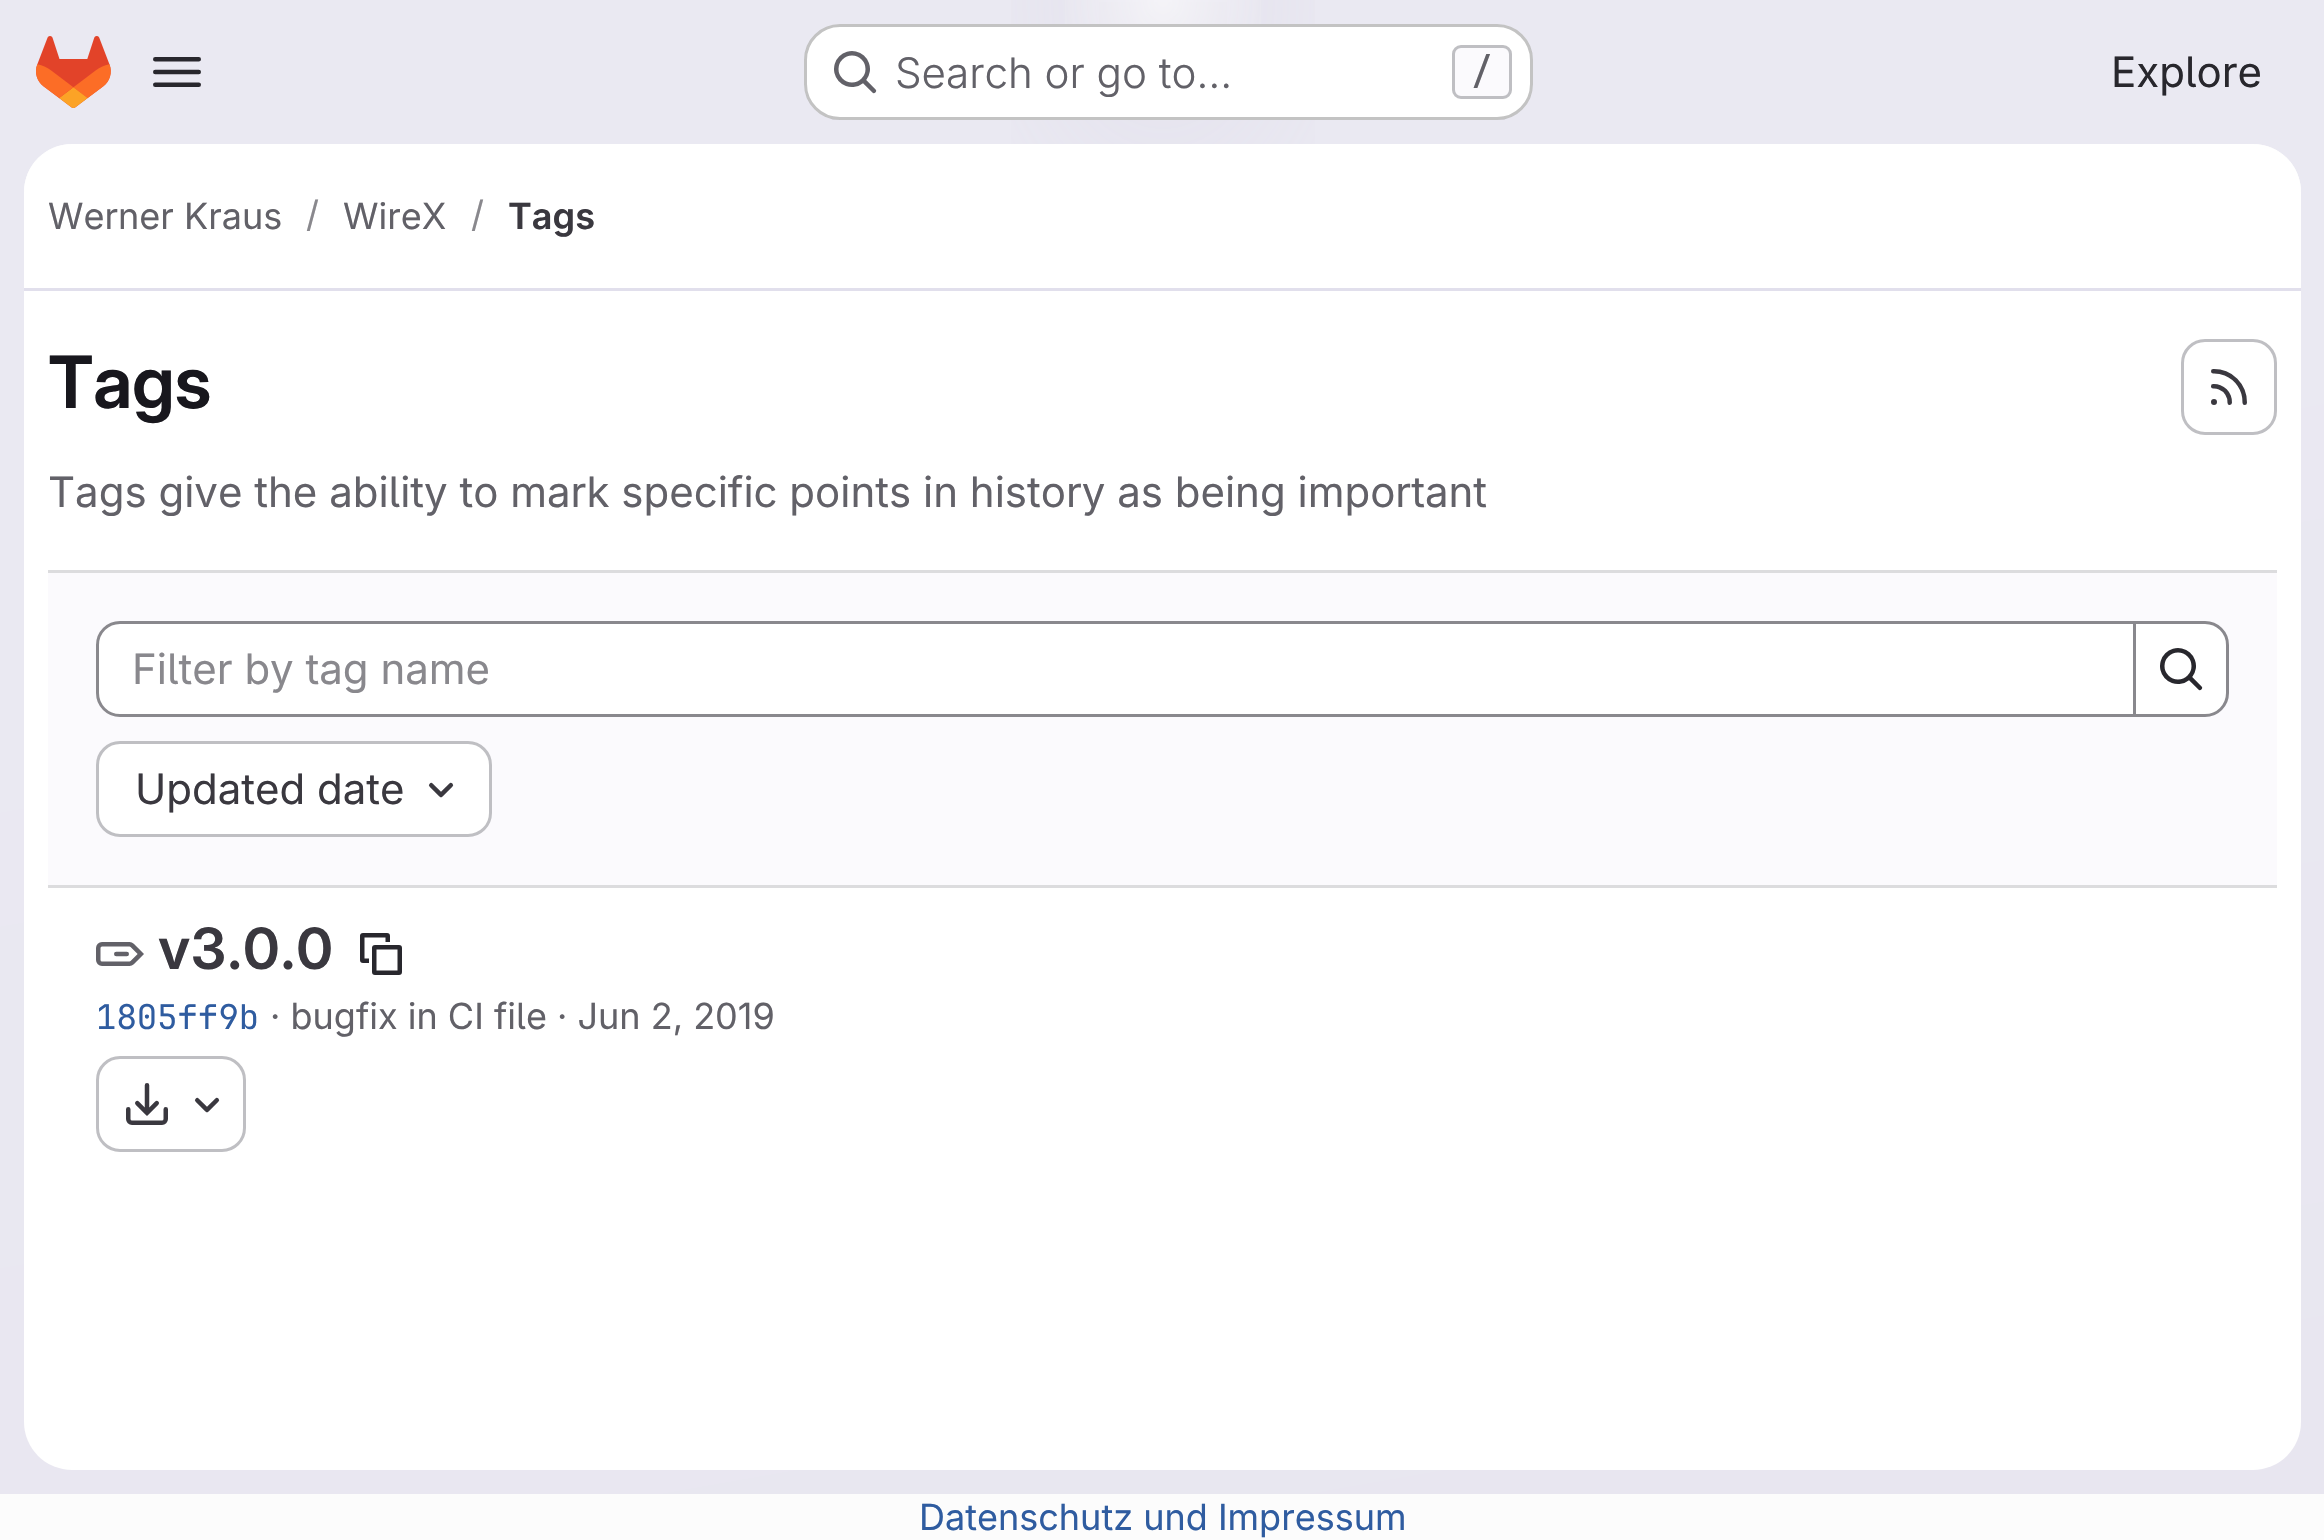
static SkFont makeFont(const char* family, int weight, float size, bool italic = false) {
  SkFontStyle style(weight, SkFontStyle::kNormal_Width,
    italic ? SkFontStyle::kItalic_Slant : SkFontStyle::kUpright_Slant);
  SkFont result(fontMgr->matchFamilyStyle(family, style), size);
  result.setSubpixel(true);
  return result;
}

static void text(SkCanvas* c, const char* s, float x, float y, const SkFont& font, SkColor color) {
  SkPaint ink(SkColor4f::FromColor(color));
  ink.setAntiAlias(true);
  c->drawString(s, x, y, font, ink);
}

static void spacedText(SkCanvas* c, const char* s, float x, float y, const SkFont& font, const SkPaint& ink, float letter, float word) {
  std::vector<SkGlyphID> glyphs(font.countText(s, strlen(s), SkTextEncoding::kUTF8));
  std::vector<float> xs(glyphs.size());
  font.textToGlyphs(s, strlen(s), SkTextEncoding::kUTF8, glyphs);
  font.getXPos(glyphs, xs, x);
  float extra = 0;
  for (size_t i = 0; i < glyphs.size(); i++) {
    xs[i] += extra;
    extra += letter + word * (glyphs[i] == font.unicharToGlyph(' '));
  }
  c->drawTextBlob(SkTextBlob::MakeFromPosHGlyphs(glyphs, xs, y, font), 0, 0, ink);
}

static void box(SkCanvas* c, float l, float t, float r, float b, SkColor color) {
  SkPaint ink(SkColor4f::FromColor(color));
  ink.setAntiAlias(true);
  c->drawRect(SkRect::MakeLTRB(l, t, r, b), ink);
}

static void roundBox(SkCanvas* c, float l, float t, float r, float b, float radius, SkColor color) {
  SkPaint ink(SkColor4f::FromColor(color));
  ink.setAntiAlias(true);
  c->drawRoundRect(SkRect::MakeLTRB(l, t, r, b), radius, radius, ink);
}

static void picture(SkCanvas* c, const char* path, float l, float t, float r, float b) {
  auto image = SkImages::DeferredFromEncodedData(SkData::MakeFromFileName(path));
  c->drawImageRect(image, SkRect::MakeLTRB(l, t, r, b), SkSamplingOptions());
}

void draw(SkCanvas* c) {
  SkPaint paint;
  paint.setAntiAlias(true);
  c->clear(0xffffffff);
  {
    const SkColor colors[] = {0xffe8e6f0, 0xffeae9f2};
    const float stops[] = {0, 0.7f};
    const SkPoint ends[] = {{1329, 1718}, {996, -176}};
    paint.setShader(SkGradientShader::MakeLinear(ends, colors, stops, 2, SkTileMode::kClamp));
    paint.setAlpha(255);
  }
  c->drawRect(SkRect::MakeLTRB(0, 0, 2324, 1494), paint);
  {
    const SkColor colors[] = {0xffe4e2ed, 0x00e4e2ed};
    const float stops[] = {0, 0.18f};
    SkMatrix m = SkMatrix::Translate(1163, 0).preScale(1163, 1542);
    paint.setShader(SkGradientShader::MakeRadial({0, 0}, 1, colors, stops, 2, SkTileMode::kClamp, 0, &m));
    paint.setAlpha(255);
  }
  c->drawRect(SkRect::MakeLTRB(1011, 0, 1315, 144), paint);
  {
    const SkColor colors[] = {0xffe4e2ec, 0x00e4e2ec};
    const float stops[] = {0, 0.13f};
    SkMatrix m = SkMatrix::Translate(1163, 0).preScale(1163, 1542);
    paint.setShader(SkGradientShader::MakeRadial({0, 0}, 1, colors, stops, 2, SkTileMode::kClamp, 0, &m));
    paint.setAlpha(255);
  }
  c->drawRect(SkRect::MakeLTRB(1099, 2, 1227, 84), paint);
  {
    const SkColor colors[] = {0x99ffffff, 0x00ffffff};
    const float stops[] = {0, 0.06f};
    paint.setShader(SkGradientShader::MakeRadial({1163, 0}, 1931, colors, stops, 2, SkTileMode::kClamp));
    paint.setAlpha(255);
  }
  c->drawRect(SkRect::MakeLTRB(1065, 0, 1261, 24), paint);
  picture(c, "img_01.png", 36, 36, 111, 108);
  picture(c, "img_02.png", 153, 57, 201, 87);
  roundBox(c, 804, 24, 1533, 120, 36, 0xffffffff);
  paint.setStyle(SkPaint::kStroke_Style);
  paint.setStrokeWidth(3);
  paint.setShader(nullptr);
  paint.setColor(0x3d050506);
  c->drawRoundRect(SkRect::MakeLTRB(805.5f, 25.5f, 1531.5f, 118.5f), 34.5f, 34.5f, paint);
  picture(c, "img_03.png", 834, 51, 877, 94);
  SkFont face1 = makeFont("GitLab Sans", 300, 42);
  text(c, "Search or go to…", 895, 88, face1, 0xff626168);
  paint.setStyle(SkPaint::kFill_Style);
  paint.setColor(0xfffbfafd);
  c->drawRoundRect(SkRect::MakeLTRB(1453.5f, 46.5f, 1510.5f, 97.5f), 7.5f, 7.5f, paint);
  paint.setStyle(SkPaint::kStroke_Style);
  paint.setColor(0xffbfbfc3);
  c->drawRoundRect(SkRect::MakeLTRB(1453.5f, 46.5f, 1510.5f, 97.5f), 7.5f, 7.5f, paint);
  SkFont face2 = makeFont("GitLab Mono", 500, 36);
  text(c, "/", 1471, 84, face2, 0xff626168);
  SkFont face3 = makeFont("GitLab Sans", 400, 42);
  text(c, "Explore", 2111, 87, face3, 0xff28272d);
  roundBox(c, 24, 144, 2301, 1470, 48, 0xffffffff);
  paint.setStyle(SkPaint::kFill_Style);
  paint.setColor(0xffffffff);
  c->drawPath(SkPathBuilder().moveTo(72, 144).lineTo(2253, 144).cubicTo(2279.5f, 144, 2301, 165.5f, 2301, 192).lineTo(2301, 291).lineTo(24, 291).lineTo(24, 192).cubicTo(24, 165.5f, 45.5f, 144, 72, 144).close().detach(), paint);
  box(c, 24, 288, 2301, 291, 0xffe1dfec);
  SkFont face4 = makeFont("GitLab Sans", 400, 36);
  text(c, "Werner Kraus", 48, 229, face4, 0xff626168);
  text(c, "/", 306, 227, face4, 0xff89888d);
  text(c, "WireX", 343, 229, face4, 0xff626168);
  text(c, "/", 471, 227, face4, 0xff89888d);
  SkFont face5 = makeFont("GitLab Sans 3", 600, 36);
  text(c, "Tags", 508, 229, face5, 0xff3a383f);
  SkFont face6 = makeFont("GitLab Sans", 600, 72);
  paint.setColor(0xff18171d);
  spacedText(c, "Tags", 48, 408, face6, paint, -0.5f, 0);
  paint.setStyle(SkPaint::kStroke_Style);
  paint.setColor(0xffbfbfc3);
  c->drawRoundRect(SkRect::MakeLTRB(2182.5f, 340.5f, 2275.5f, 433.5f), 22.5f, 22.5f, paint);
  picture(c, "img_04.png", 2211, 369, 2247, 405);
  text(c, "Tags give the ability to mark specific points in history as being important", 48, 507, face3, 0xff626168);
  box(c, 48, 573, 2277, 885, 0xfffbfafd);
  box(c, 48, 570, 2277, 573, 0xffdcdcde);
  box(c, 48, 885, 2277, 888, 0xffdcdcde);
  paint.setStyle(SkPaint::kFill_Style);
  paint.setColor(0xffffffff);
  c->drawPath(SkPathBuilder().moveTo(120, 622.5f).lineTo(2134.5f, 622.5f).lineTo(2134.5f, 715.5f).lineTo(120, 715.5f).cubicTo(107.5f, 715.5f, 97.5f, 705.5f, 97.5f, 693).lineTo(97.5f, 645).cubicTo(97.5f, 632.5f, 107.5f, 622.5f, 120, 622.5f).close().detach(), paint);
  paint.setStyle(SkPaint::kStroke_Style);
  paint.setColor(0xff89888d);
  c->drawPath(SkPathBuilder().moveTo(120, 622.5f).lineTo(2134.5f, 622.5f).lineTo(2134.5f, 715.5f).lineTo(120, 715.5f).cubicTo(107.5f, 715.5f, 97.5f, 705.5f, 97.5f, 693).lineTo(97.5f, 645).cubicTo(97.5f, 632.5f, 107.5f, 622.5f, 120, 622.5f).close().detach(), paint);
  text(c, "Filter by tag name", 132, 684, face3, 0xff89888d);
  paint.setStyle(SkPaint::kFill_Style);
  paint.setColor(0xffffffff);
  c->drawPath(SkPathBuilder().moveTo(2134.5f, 622.5f).lineTo(2205, 622.5f).cubicTo(2217.5f, 622.5f, 2227.5f, 632.5f, 2227.5f, 645).lineTo(2227.5f, 693).cubicTo(2227.5f, 705.5f, 2217.5f, 715.5f, 2205, 715.5f).lineTo(2134.5f, 715.5f).close().detach(), paint);
  paint.setStyle(SkPaint::kStroke_Style);
  paint.setColor(0xff89888d);
  c->drawPath(SkPathBuilder().moveTo(2134.5f, 622.5f).lineTo(2205, 622.5f).cubicTo(2217.5f, 622.5f, 2227.5f, 632.5f, 2227.5f, 645).lineTo(2227.5f, 693).cubicTo(2227.5f, 705.5f, 2217.5f, 715.5f, 2205, 715.5f).lineTo(2134.5f, 715.5f).close().detach(), paint);
  picture(c, "img_05.png", 2160, 648, 2203, 691);
  paint.setStyle(SkPaint::kFill_Style);
  paint.setColor(0xffffffff);
  c->drawRoundRect(SkRect::MakeLTRB(97.5f, 742.5f, 490.5f, 835.5f), 22.5f, 22.5f, paint);
  paint.setStyle(SkPaint::kStroke_Style);
  paint.setColor(0xffbfbfc3);
  c->drawRoundRect(SkRect::MakeLTRB(97.5f, 742.5f, 490.5f, 835.5f), 22.5f, 22.5f, paint);
  text(c, "Updated date", 135, 804, face3, 0xff3a383f);
  picture(c, "img_06.png", 428, 782, 454, 798);
  picture(c, "img_07.png", 96, 942, 144, 966);
  SkFont face7 = makeFont("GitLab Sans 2", 600, 57);
  text(c, "v3.0.0", 158, 969, face7, 0xff3a383f);
  picture(c, "img_08.png", 360, 933, 402, 975);
  SkFont face8 = makeFont("GitLab Mono", 400, 34);
  text(c, "1805ff9b", 96, 1029, face8, 0xff2f5ca0);
  text(c, "· bugfix in CI file · Jun 2, 2019", 270, 1029, face4, 0xff626168);
  c->drawRoundRect(SkRect::MakeLTRB(97.5f, 1057.5f, 244.5f, 1150.5f), 22.5f, 22.5f, paint);
  picture(c, "img_09.png", 126, 1083, 168, 1125);
  picture(c, "img_06.png", 194, 1097, 220, 1113);
  box(c, 0, 1494, 2324, 1540, 0xfffcfcfc);
  text(c, "Datenschutz und Impressum", 919, 1530, face4, 0xff2f5ca0);
}
